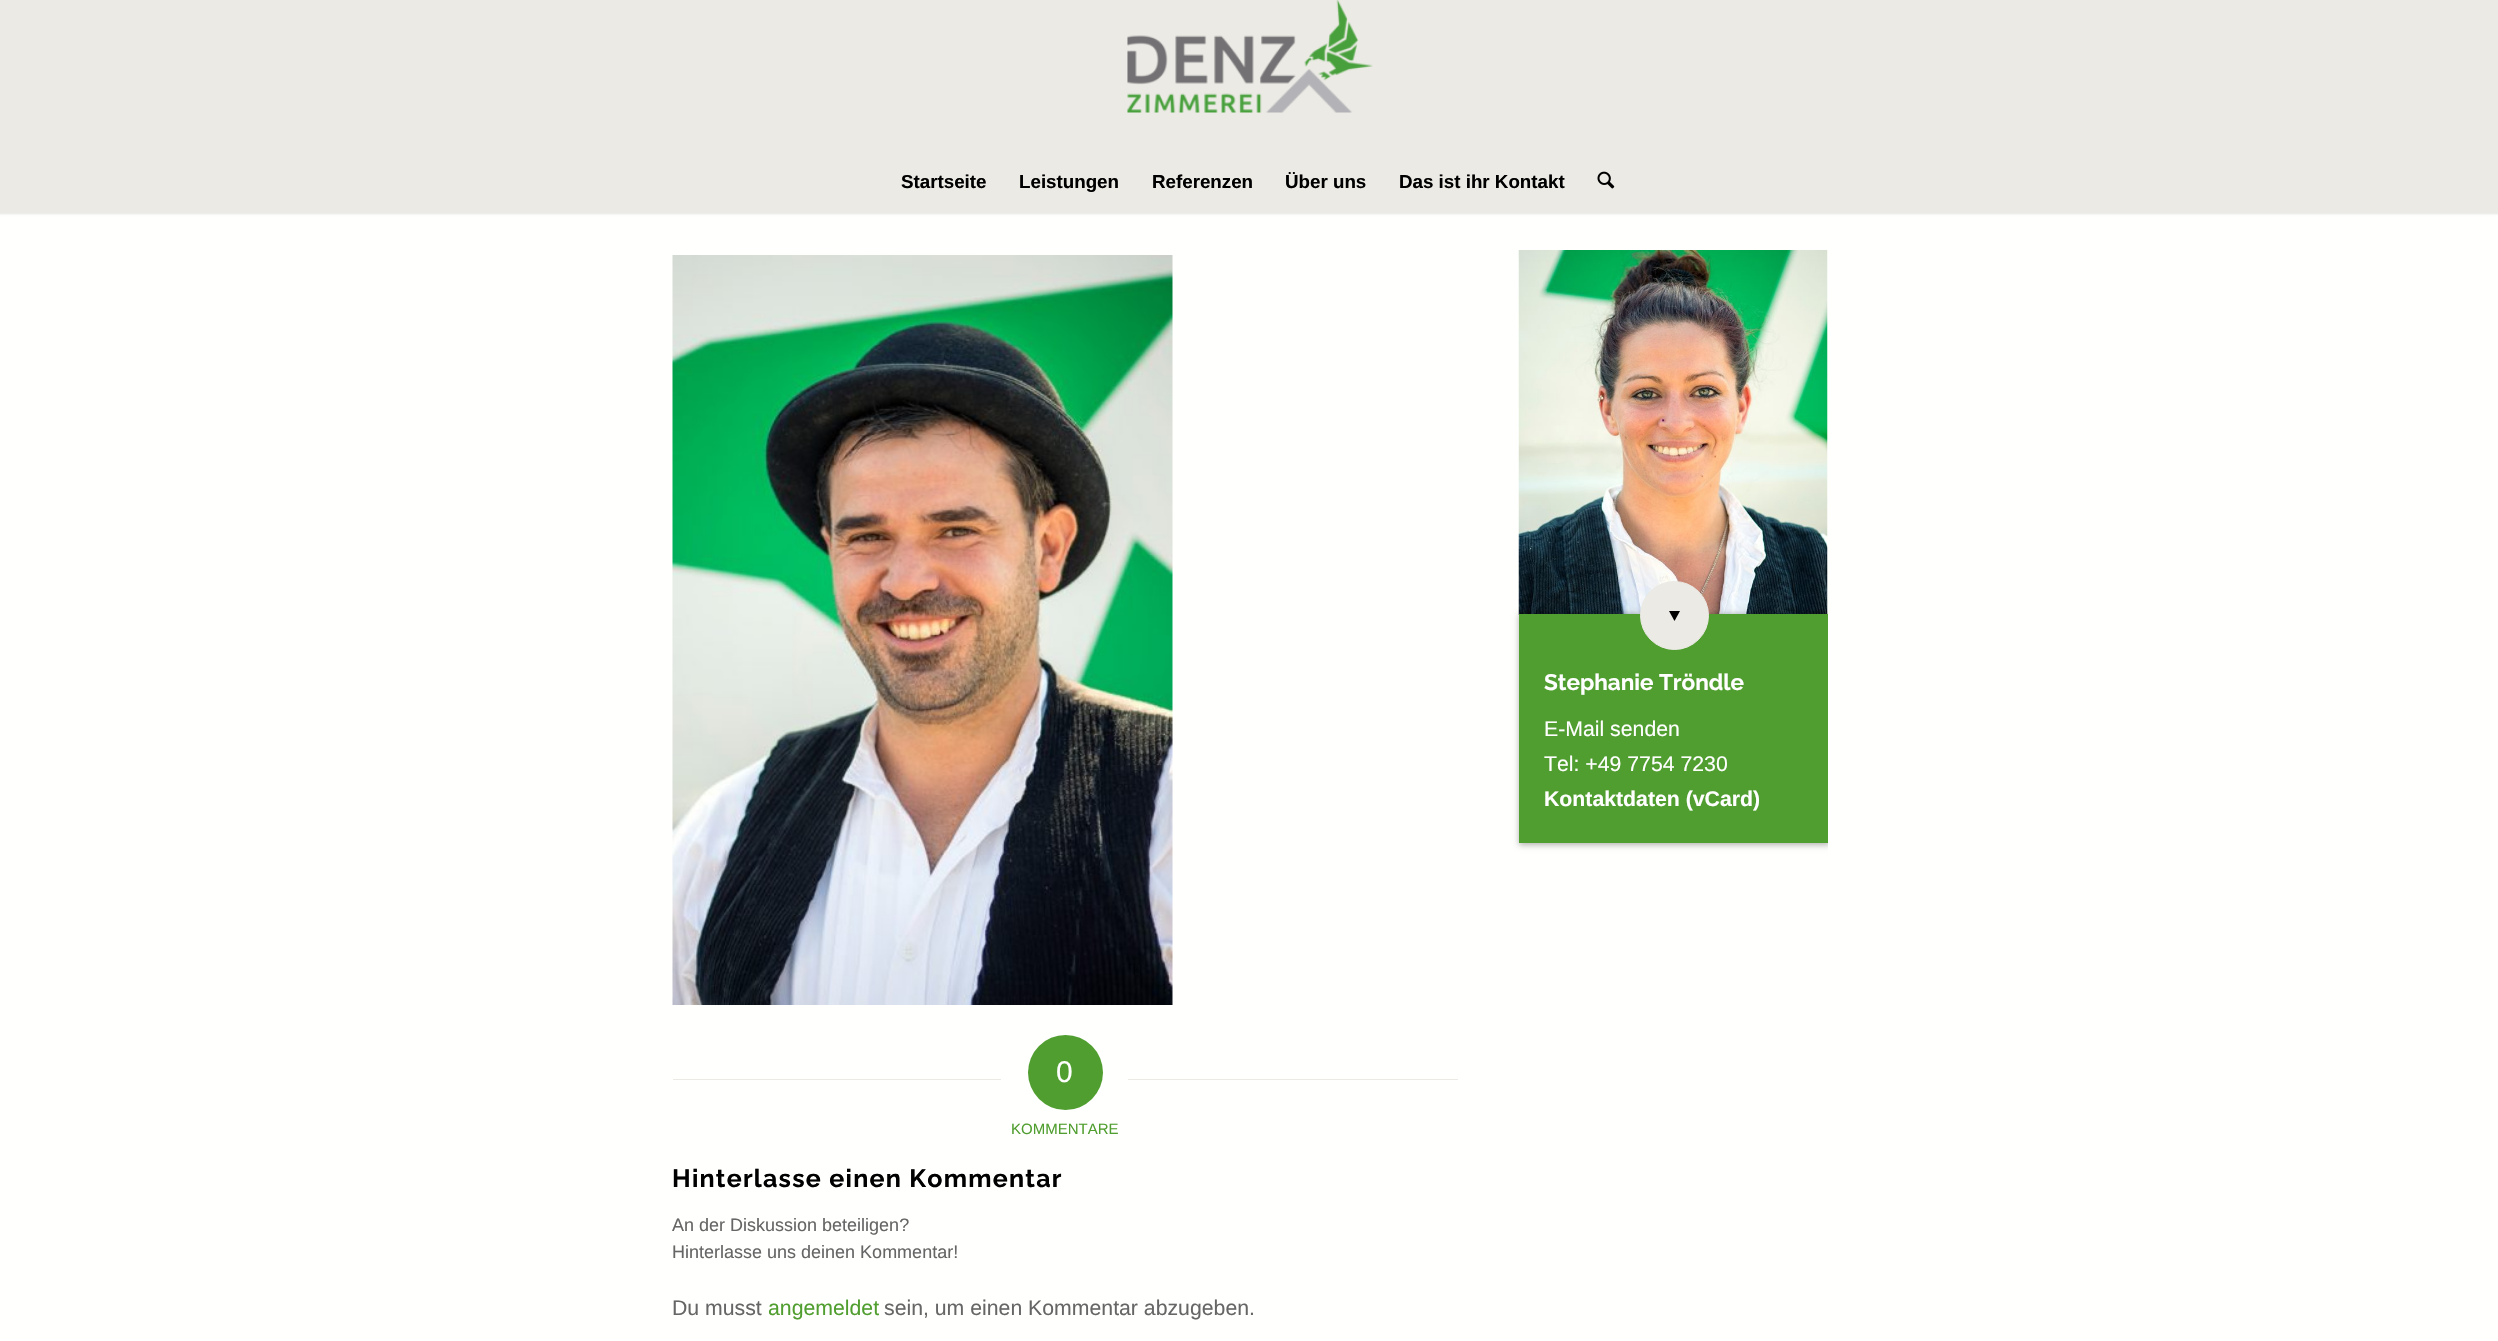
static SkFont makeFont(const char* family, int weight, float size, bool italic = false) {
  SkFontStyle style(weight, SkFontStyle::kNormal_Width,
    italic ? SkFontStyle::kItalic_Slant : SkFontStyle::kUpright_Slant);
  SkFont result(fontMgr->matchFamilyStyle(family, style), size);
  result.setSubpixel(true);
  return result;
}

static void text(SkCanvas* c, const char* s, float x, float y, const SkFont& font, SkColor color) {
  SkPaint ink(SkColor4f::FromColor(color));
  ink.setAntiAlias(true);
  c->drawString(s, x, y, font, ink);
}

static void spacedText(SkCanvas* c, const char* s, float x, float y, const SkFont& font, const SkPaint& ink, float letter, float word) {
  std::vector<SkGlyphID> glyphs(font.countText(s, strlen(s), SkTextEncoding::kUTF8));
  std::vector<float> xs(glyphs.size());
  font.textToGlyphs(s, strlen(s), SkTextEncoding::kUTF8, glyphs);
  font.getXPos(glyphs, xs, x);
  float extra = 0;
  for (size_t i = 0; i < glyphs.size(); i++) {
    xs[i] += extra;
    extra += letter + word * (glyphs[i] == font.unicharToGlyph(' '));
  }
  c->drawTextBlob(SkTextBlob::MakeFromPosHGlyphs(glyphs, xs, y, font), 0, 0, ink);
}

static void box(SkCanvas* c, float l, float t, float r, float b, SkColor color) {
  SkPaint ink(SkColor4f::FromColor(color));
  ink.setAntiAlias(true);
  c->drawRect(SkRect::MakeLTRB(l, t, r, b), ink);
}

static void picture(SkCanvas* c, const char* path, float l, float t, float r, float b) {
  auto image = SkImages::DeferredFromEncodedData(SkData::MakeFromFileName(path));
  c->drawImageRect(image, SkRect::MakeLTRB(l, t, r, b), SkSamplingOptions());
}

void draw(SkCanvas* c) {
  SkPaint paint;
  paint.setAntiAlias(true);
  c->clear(0xfffffffd);
  paint.setColor(0x1a000000);
  paint.setMaskFilter(SkMaskFilter::MakeBlur(kNormal_SkBlurStyle, 1));
  c->drawRect(SkRect::MakeLTRB(-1, -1, 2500, 214), paint);
  paint.setMaskFilter(nullptr);
  box(c, 0, 0, 2498, 213, 0xffebeae4);
  picture(c, "img_01.png", 1127, 0, 1373, 113);
  SkFont face1 = makeFont("Liberation Sans", 700, 18.75f);
  text(c, "Startseite", 901, 188, face1, 0xff000000);
  text(c, "Leistungen", 1019, 188, face1, 0xff000000);
  text(c, "Referenzen", 1152, 188, face1, 0xff000000);
  text(c, "Über uns", 1285, 188, face1, 0xff000000);
  text(c, "Das ist ihr Kontakt", 1399, 188, face1, 0xff000000);
  picture(c, "img_02.png", 1597, 171, 1615, 189);
  picture(c, "img_03.png", 1518, 250, 1828, 615);
  c->save();
  c->clipRect(SkRect::MakeLTRB(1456, 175, 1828, 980));
  paint.setColor(0x4d000000);
  paint.setMaskFilter(SkMaskFilter::MakeBlur(kNormal_SkBlurStyle, 3));
  c->drawRect(SkRect::MakeLTRB(1519, 614, 1830, 845), paint);
  paint.setMaskFilter(nullptr);
  c->restore();
  box(c, 1519, 614, 1828, 843, 0xff509e2f);
  paint.setColor(0xffebeae4);
  c->drawCircle(1674.5f, 615.5f, 34, paint);
  paint.setStyle(SkPaint::kStroke_Style);
  paint.setStrokeWidth(1);
  c->drawCircle(1674.5f, 615.5f, 34, paint);
  paint.setStyle(SkPaint::kFill_Style);
  paint.setColor(0xff000000);
  c->drawPath(SkPathBuilder().moveTo(1680, 611).lineTo(1674.5f, 621).lineTo(1669, 611).close().detach(), paint);
  SkFont face2 = makeFont("Raleway", 700, 22.5f);
  text(c, "Stephanie Tröndle", 1544, 690, face2, 0xffffffff);
  SkFont face3 = makeFont("Liberation Sans", 400, 21.25f);
  text(c, "E-Mail senden", 1544, 736, face3, 0xffffffff);
  text(c, "Tel: +49 7754 7230", 1544, 771, face3, 0xffffffff);
  SkFont face4 = makeFont("Liberation Sans", 700, 21.25f);
  text(c, "Kontaktdaten (vCard)", 1544, 806, face4, 0xffffffff);
  picture(c, "img_04.png", 672, 255, 1173, 1005);
  box(c, 673, 1079, 1001, 1080, 0xffebeae4);
  paint.setColor(0xff509e2f);
  c->drawCircle(1065.5f, 1072.5f, 37.5f, paint);
  SkFont face5 = makeFont("Liberation Sans", 400, 30);
  text(c, "0", 1056, 1082, face5, 0xffffffff);
  box(c, 1128, 1079, 1458, 1080, 0xffebeae4);
  SkFont face6 = makeFont("Liberation Sans", 400, 15);
  text(c, "KOMMENTARE", 1011, 1134, face6, 0xff509e2f);
  SkFont face7 = makeFont("Raleway", 700, 25);
  paint.setColor(0xff000000);
  spacedText(c, "Hinterlasse einen Kommentar", 672, 1187, face7, paint, 1.25f, 0);
  SkFont face8 = makeFont("Liberation Sans", 400, 18);
  text(c, "An der Diskussion beteiligen?", 672, 1231, face8, 0xff666666);
  text(c, "Hinterlasse uns deinen Kommentar!", 672, 1258, face8, 0xff666666);
  text(c, "Du musst", 672, 1315, face3, 0xff666666);
  text(c, "angemeldet", 768, 1315, face3, 0xff509e2f);
  text(c, "sein, um einen Kommentar abzugeben.", 884, 1315, face3, 0xff666666);
}
